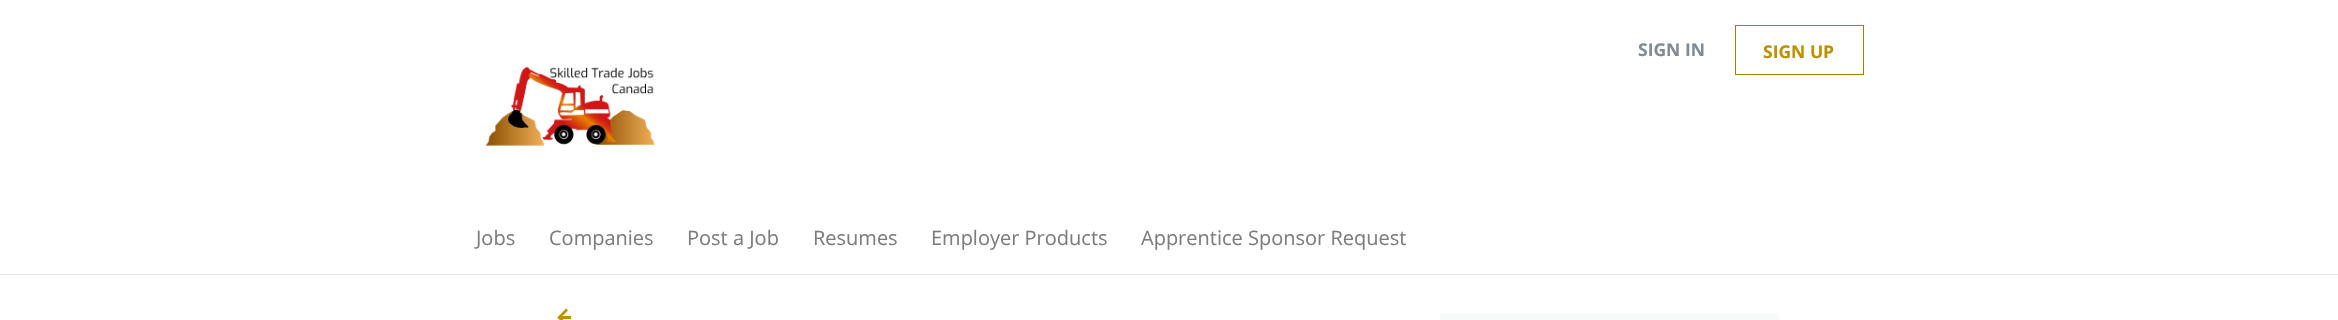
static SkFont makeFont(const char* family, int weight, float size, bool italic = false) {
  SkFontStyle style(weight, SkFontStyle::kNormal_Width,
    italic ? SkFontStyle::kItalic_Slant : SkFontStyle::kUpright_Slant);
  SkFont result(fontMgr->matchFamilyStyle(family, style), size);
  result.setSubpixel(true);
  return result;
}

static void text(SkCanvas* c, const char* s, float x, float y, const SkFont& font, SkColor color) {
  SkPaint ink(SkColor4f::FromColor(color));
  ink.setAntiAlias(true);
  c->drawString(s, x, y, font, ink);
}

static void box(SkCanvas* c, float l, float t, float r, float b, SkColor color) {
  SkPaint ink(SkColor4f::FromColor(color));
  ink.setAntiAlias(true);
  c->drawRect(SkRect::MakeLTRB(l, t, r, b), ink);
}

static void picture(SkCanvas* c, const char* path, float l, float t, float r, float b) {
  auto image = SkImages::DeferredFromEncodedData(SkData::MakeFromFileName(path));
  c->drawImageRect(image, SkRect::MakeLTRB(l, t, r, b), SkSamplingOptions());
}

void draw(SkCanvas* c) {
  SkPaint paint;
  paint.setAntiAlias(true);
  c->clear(0xffffffff);
  box(c, 0, 274, 2338, 275, 0xffe4e6e8);
  SkFont face1 = makeFont("Open Sans", 700, 17.5f);
  text(c, "SIGN IN", 1638, 56, face1, 0xff818b96);
  paint.setStyle(SkPaint::kStroke_Style);
  paint.setStrokeWidth(1);
  paint.setColor(0xffa67d00);
  c->drawRect(SkRect::MakeLTRB(1735.5f, 25.5f, 1863.5f, 74.5f), paint);
  text(c, "SIGN UP", 1763, 58, face1, 0xffbf9000);
  SkFont face2 = makeFont("Open Sans", 400, 20);
  text(c, "Jobs", 476, 245, face2, 0xff7d7d7d);
  text(c, "Companies", 549, 245, face2, 0xff7d7d7d);
  text(c, "Post a Job", 687, 245, face2, 0xff7d7d7d);
  text(c, "Resumes", 813, 245, face2, 0xff7d7d7d);
  text(c, "Employer Products", 931, 245, face2, 0xff7d7d7d);
  text(c, "Apprentice Sponsor Request", 1141, 245, face2, 0xff7d7d7d);
  picture(c, "img_01.png", 485, 66, 655, 146);
  paint.setStyle(SkPaint::kFill_Style);
  paint.setColor(0xffbf9000);
  c->drawPath(SkPathBuilder().moveTo(559, 315.5f).lineTo(568, 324.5f).lineTo(566, 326.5f).lineTo(557.5f, 317.5f).close().detach(), paint);
  c->drawPath(SkPathBuilder().moveTo(566, 308.5f).lineTo(568, 310.5f).lineTo(559, 319.5f).lineTo(557.5f, 317.5f).close().detach(), paint);
  box(c, 560, 316, 571, 319, 0xffbf9000);
  box(c, 1440, 313, 1779, 320, 0xfff8f9f9);
}
